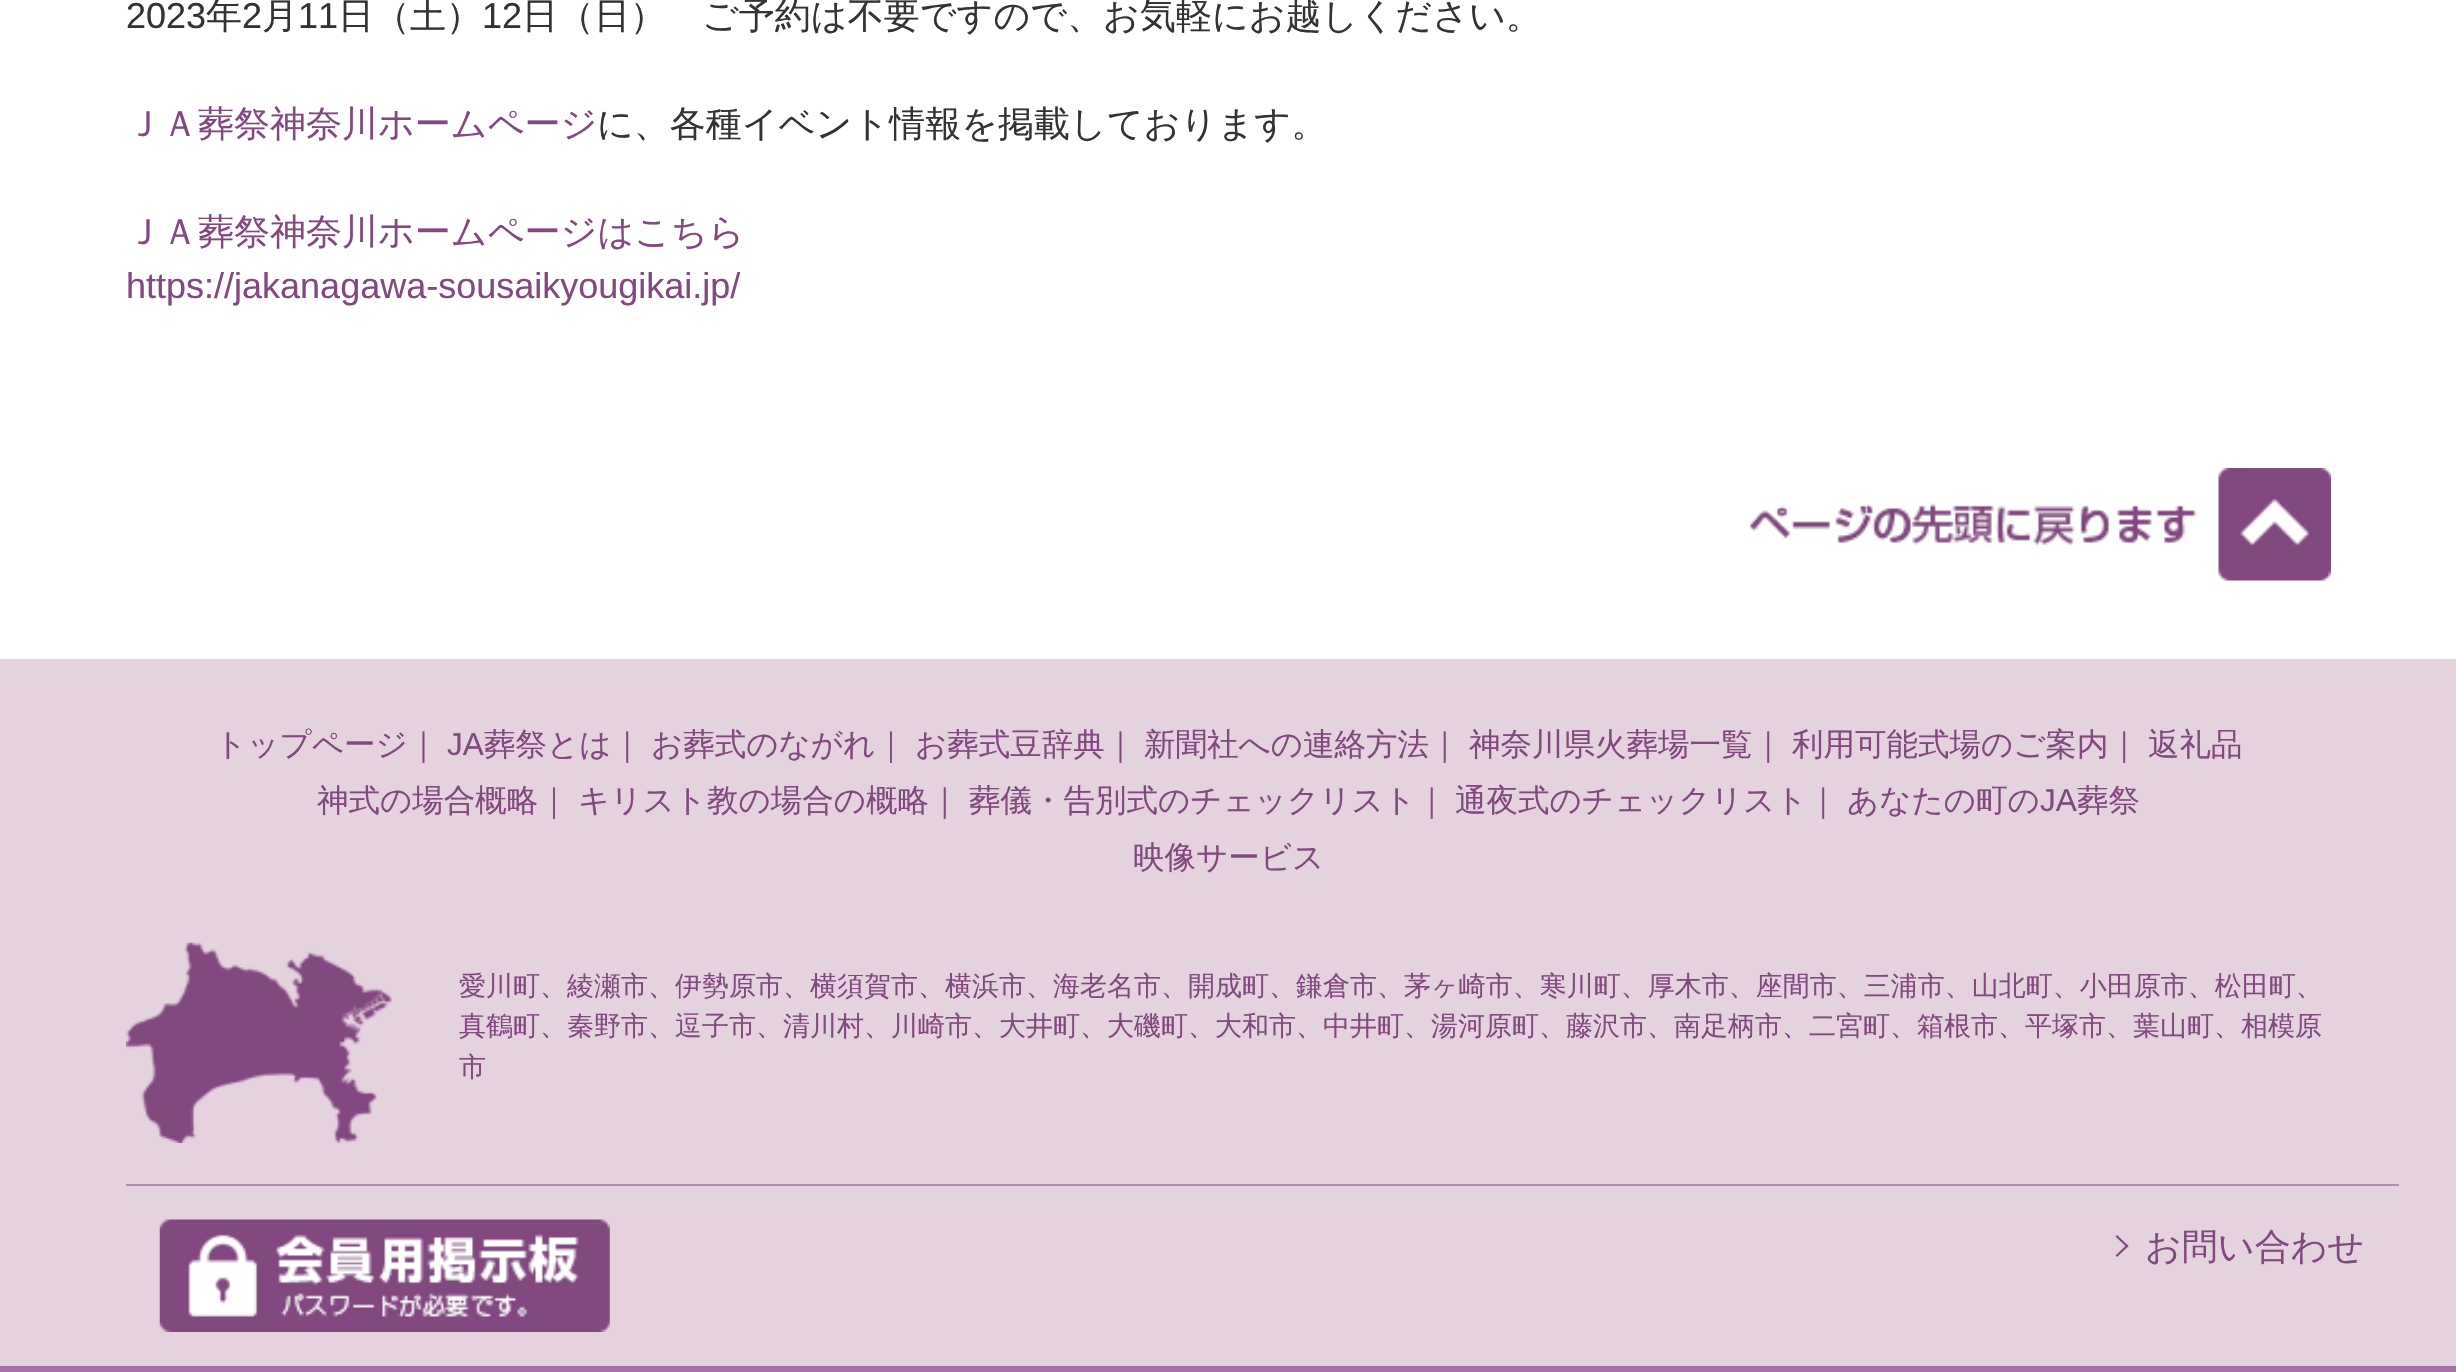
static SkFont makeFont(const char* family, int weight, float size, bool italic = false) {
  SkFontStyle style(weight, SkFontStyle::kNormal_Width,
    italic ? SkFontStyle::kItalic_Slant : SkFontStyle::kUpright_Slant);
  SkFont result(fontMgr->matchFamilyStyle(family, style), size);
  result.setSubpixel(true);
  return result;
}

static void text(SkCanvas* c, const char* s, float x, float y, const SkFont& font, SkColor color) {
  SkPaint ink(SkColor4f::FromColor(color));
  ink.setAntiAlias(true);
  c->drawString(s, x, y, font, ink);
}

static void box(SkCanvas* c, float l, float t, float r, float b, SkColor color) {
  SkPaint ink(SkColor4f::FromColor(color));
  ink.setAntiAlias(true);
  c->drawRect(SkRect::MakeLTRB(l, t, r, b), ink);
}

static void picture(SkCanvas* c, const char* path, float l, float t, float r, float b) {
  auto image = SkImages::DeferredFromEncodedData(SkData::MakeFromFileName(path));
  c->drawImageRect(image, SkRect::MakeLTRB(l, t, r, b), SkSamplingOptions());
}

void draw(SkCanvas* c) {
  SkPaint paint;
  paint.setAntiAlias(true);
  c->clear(0xffffffff);
  SkFont face1 = makeFont("Liberation Sans", 400, 36);
  text(c, "2023", 126, 28, face1, 0xff333333);
  SkFont face2 = makeFont("WenQuanYi Zen Hei", 500, 36);
  text(c, "年", 206, 28, face2, 0xff333333);
  text(c, "2", 242, 28, face1, 0xff333333);
  text(c, "月", 262, 28, face2, 0xff333333);
  text(c, "11", 298, 28, face1, 0xff333333);
  text(c, "日（土）", 338, 28, face2, 0xff333333);
  text(c, "12", 482, 28, face1, 0xff333333);
  text(c, "日（日）　ご予約は不要ですので、お気軽にお越しください。", 522, 28, face2, 0xff333333);
  text(c, "ＪＡ葬祭神奈川ホームページ", 126, 136, face2, 0xff824880);
  text(c, "に、各種イベント情報を掲載しております。", 597, 136, face2, 0xff333333);
  text(c, "ＪＡ葬祭神奈川ホームページはこちら", 126, 244, face2, 0xff824880);
  text(c, "https://jakanagawa-sousaikyougikai.jp/", 126, 298, face1, 0xff824880);
  box(c, 0, 659, 2456, 1366, 0xffe5d2df);
  picture(c, "img_01.png", 1750, 468, 2331, 581);
  SkFont face3 = makeFont("WenQuanYi Zen Hei", 500, 31.5f);
  text(c, "トップページ｜", 215, 755, face3, 0xff824880);
  SkFont face4 = makeFont("Liberation Sans", 400, 31.5f);
  text(c, "JA", 447, 755, face4, 0xff824880);
  text(c, "葬祭とは｜", 484, 755, face3, 0xff824880);
  text(c, "お葬式のながれ｜", 651, 755, face3, 0xff824880);
  text(c, "お葬式豆辞典｜", 915, 755, face3, 0xff824880);
  text(c, "新聞社への連絡方法｜", 1144, 755, face3, 0xff824880);
  text(c, "神奈川県火葬場一覧｜", 1469, 755, face3, 0xff824880);
  text(c, "利用可能式場のご案内｜", 1792, 755, face3, 0xff824880);
  text(c, "返礼品", 2148, 755, face3, 0xff824880);
  text(c, "神式の場合概略｜", 317, 811, face3, 0xff824880);
  text(c, "キリスト教の場合の概略｜", 578, 811, face3, 0xff824880);
  text(c, "葬儀・告別式のチェックリスト｜", 969, 811, face3, 0xff824880);
  text(c, "通夜式のチェックリスト｜", 1455, 811, face3, 0xff824880);
  text(c, "あなたの町の", 1847, 811, face3, 0xff824880);
  text(c, "JA", 2040, 811, face4, 0xff824880);
  text(c, "葬祭", 2077, 811, face3, 0xff824880);
  text(c, "映像サービス", 1133, 868, face3, 0xff824880);
  picture(c, "img_02.png", 126, 942, 392, 1143);
  SkFont face5 = makeFont("WenQuanYi Zen Hei", 500, 27);
  text(c, "愛川町、綾瀬市、伊勢原市、横須賀市、横浜市、海老名市、開成町、鎌倉市、茅ヶ崎市、寒川町、厚木市、座間市、三浦市、山北町、小田原市、松田町、", 459, 995, face5, 0xff824880);
  text(c, "真鶴町、秦野市、逗子市、清川村、川崎市、大井町、大磯町、大和市、中井町、湯河原町、藤沢市、南足柄市、二宮町、箱根市、平塚市、葉山町、相模原", 459, 1035, face5, 0xff824880);
  text(c, "市", 459, 1076, face5, 0xff824880);
  box(c, 126, 1184, 2399, 1186, 0xffb38daf);
  picture(c, "img_03.png", 159, 1219, 610, 1332);
  paint.setColor(0xff824880);
  c->drawPath(SkPathBuilder().moveTo(2117, 1235).lineTo(2128.5f, 1246).lineTo(2127, 1247.5f).lineTo(2115.5f, 1236.5f).close().detach(), paint);
  c->drawPath(SkPathBuilder().moveTo(2127, 1244.5f).lineTo(2128.5f, 1246).lineTo(2117, 1257).lineTo(2115.5f, 1255.5f).close().detach(), paint);
  text(c, "お問い合わせ", 2145, 1259, face2, 0xff824880);
  box(c, 0, 1366, 2456, 1372, 0xffa771a5);
}
